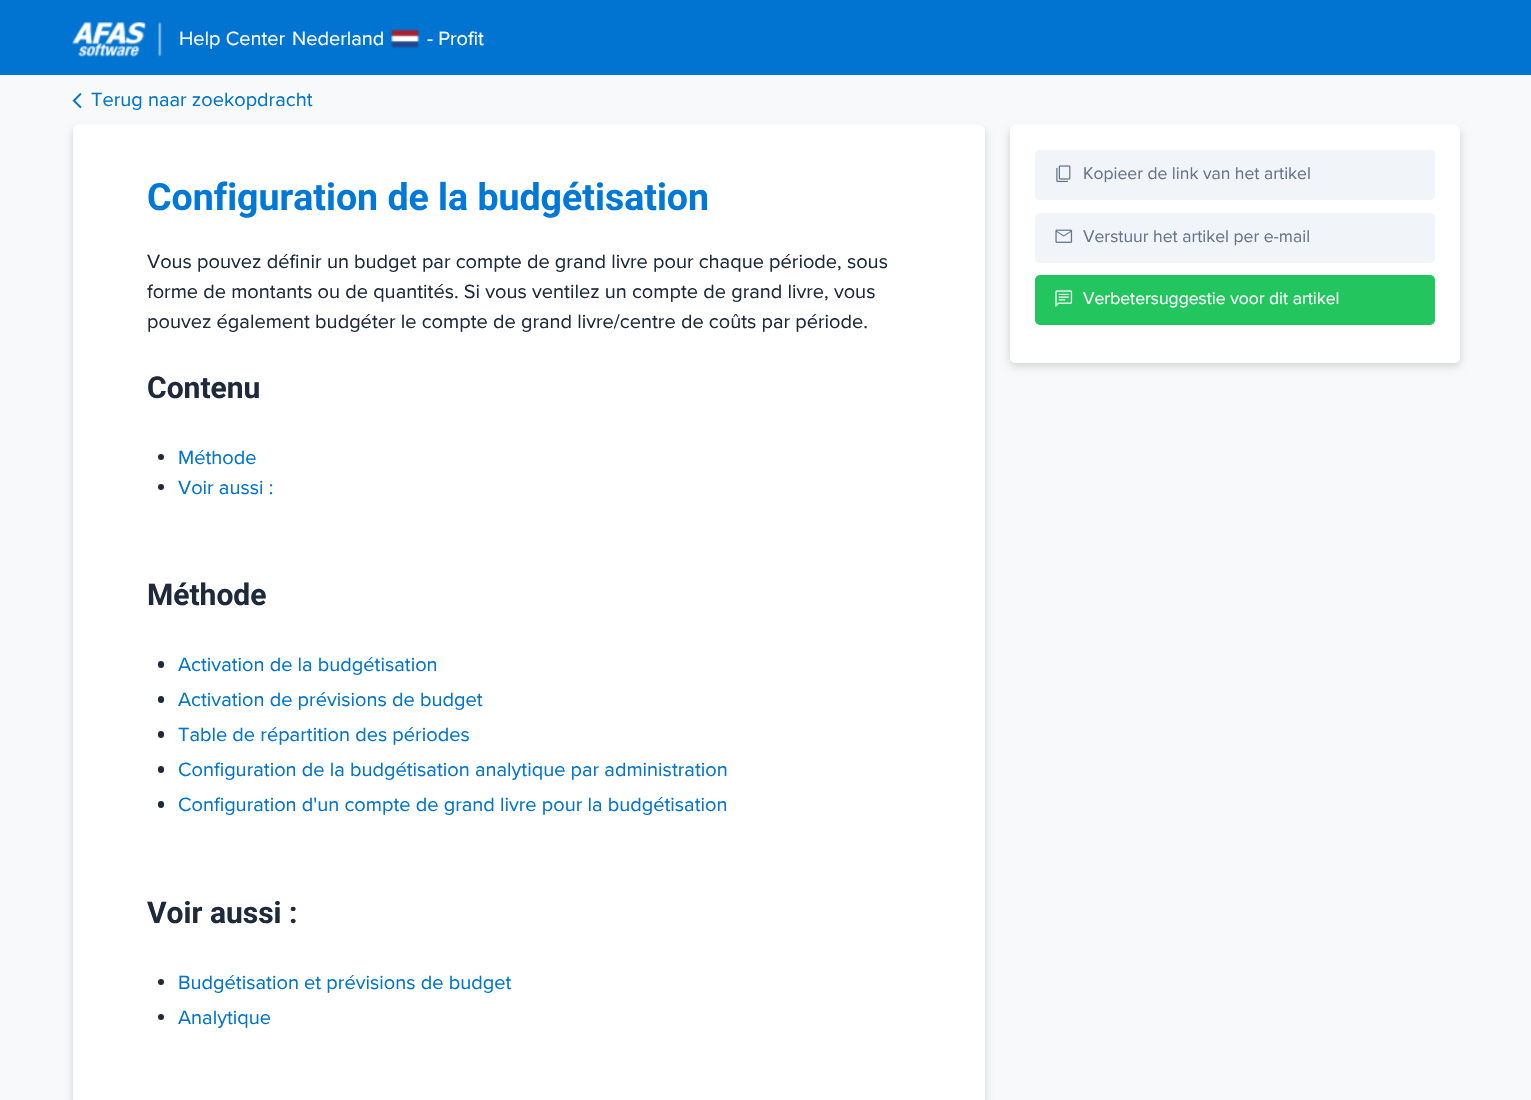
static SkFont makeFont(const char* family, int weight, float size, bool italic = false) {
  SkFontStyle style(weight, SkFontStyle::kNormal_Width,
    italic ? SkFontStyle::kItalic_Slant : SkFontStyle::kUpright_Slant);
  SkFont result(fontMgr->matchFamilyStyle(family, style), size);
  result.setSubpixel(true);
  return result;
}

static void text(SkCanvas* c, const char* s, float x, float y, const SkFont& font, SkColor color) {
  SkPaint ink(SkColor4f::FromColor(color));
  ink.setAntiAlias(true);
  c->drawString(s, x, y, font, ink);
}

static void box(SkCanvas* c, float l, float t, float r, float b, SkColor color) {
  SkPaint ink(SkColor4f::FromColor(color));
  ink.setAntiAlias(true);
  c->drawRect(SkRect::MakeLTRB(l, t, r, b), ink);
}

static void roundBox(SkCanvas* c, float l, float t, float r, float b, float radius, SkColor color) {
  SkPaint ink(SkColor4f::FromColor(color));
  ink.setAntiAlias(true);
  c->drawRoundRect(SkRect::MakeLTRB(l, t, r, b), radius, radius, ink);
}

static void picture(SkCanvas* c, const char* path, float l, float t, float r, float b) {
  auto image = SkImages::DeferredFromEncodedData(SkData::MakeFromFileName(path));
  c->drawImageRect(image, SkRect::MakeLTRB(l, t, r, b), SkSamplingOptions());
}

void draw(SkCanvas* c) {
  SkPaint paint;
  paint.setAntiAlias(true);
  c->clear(0xfff7f9fa);
  box(c, 0, 0, 1531, 75, 0xff0074d0);
  picture(c, "img_01.png", 72, 22, 162, 57);
  SkFont face1 = makeFont("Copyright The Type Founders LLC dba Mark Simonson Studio", 400, 20);
  text(c, "Help Center", 179, 45, face1, 0xffffffff);
  text(c, "Nederland", 292, 45, face1, 0xffffffff);
  picture(c, "img_02.png", 390, 29, 420, 49);
  text(c, "- Profit", 427, 45, face1, 0xffffffff);
  paint.setColor(0x29000000);
  paint.setMaskFilter(SkMaskFilter::MakeBlur(kNormal_SkBlurStyle, 4));
  c->drawRoundRect(SkRect::MakeLTRB(73, 129, 985, 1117), 5, 5, paint);
  paint.setMaskFilter(nullptr);
  paint.setMaskFilter(SkMaskFilter::MakeBlur(kNormal_SkBlurStyle, 4));
  c->drawRoundRect(SkRect::MakeLTRB(1010, 129, 1460, 366), 5, 5, paint);
  paint.setMaskFilter(nullptr);
  box(c, 75, 123, 1458, 125, 0xfff7f9fa);
  picture(c, "img_03.png", 72, 93, 82, 109);
  text(c, "Terug naar zoekopdracht", 91, 106, face1, 0xff0074d0);
  roundBox(c, 73, 125, 985, 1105, 5, 0xffffffff);
  SkFont face2 = makeFont("Roboto", 700, 37.5f);
  text(c, "Configuration de la budgétisation", 147, 210, face2, 0xff0078d7);
  text(c, "Vous pouvez définir un budget par compte de grand livre pour chaque période, sous", 147, 268, face1, 0xff1e293b);
  text(c, "forme de montants ou de quantités. Si vous ventilez un compte de grand livre, vous", 147, 298, face1, 0xff1e293b);
  text(c, "pouvez également budgéter le compte de grand livre/centre de coûts par période.", 147, 328, face1, 0xff1e293b);
  SkFont face3 = makeFont("Roboto", 700, 30);
  text(c, "Contenu", 147, 398, face3, 0xff1e293b);
  paint.setColor(0xff1e293b);
  c->drawCircle(161, 457, 3, paint);
  text(c, "Méthode", 178, 464, face1, 0xff0074d0);
  c->drawCircle(161, 487, 3, paint);
  text(c, "Voir aussi :", 178, 494, face1, 0xff0074d0);
  text(c, "Méthode", 147, 605, face3, 0xff1e293b);
  roundBox(c, 158, 661, 164, 668, 3, 0xff1e293b);
  text(c, "Activation de la budgétisation", 178, 671, face1, 0xff0074d0);
  roundBox(c, 158, 696, 164, 703, 3, 0xff1e293b);
  text(c, "Activation de prévisions de budget", 178, 706, face1, 0xff0074d0);
  roundBox(c, 158, 731, 164, 738, 3, 0xff1e293b);
  text(c, "Table de répartition des périodes", 178, 741, face1, 0xff0074d0);
  roundBox(c, 158, 766, 164, 773, 3, 0xff1e293b);
  text(c, "Configuration de la budgétisation analytique par administration", 178, 776, face1, 0xff0074d0);
  roundBox(c, 158, 801, 164, 808, 3, 0xff1e293b);
  text(c, "Configuration d'un compte de grand livre pour la budgétisation", 178, 811, face1, 0xff0074d0);
  text(c, "Voir aussi :", 147, 923, face3, 0xff1e293b);
  c->drawCircle(161, 982, 3, paint);
  text(c, "Budgétisation et prévisions de budget", 178, 989, face1, 0xff0074d0);
  c->drawCircle(161, 1017, 3, paint);
  text(c, "Analytique", 178, 1024, face1, 0xff0074d0);
  roundBox(c, 1010, 125, 1460, 363, 5, 0xffffffff);
  roundBox(c, 1035, 150, 1435, 200, 5, 0xfff1f5f9);
  picture(c, "img_04.png", 1056, 165, 1071, 183);
  SkFont face4 = makeFont("Copyright The Type Founders LLC dba Mark Simonson Studio", 400, 17.5f);
  text(c, "Kopieer de link van het artikel", 1083, 179, face4, 0xff64748b);
  roundBox(c, 1035, 213, 1435, 263, 5, 0xfff1f5f9);
  picture(c, "img_05.png", 1055, 229, 1073, 243);
  text(c, "Verstuur het artikel per e-mail", 1083, 242, face4, 0xff64748b);
  roundBox(c, 1035, 275, 1435, 325, 5, 0xff22c55e);
  picture(c, "img_06.png", 1055, 290, 1073, 307);
  text(c, "Verbetersuggestie voor dit artikel", 1083, 304, face4, 0xffffffff);
}
